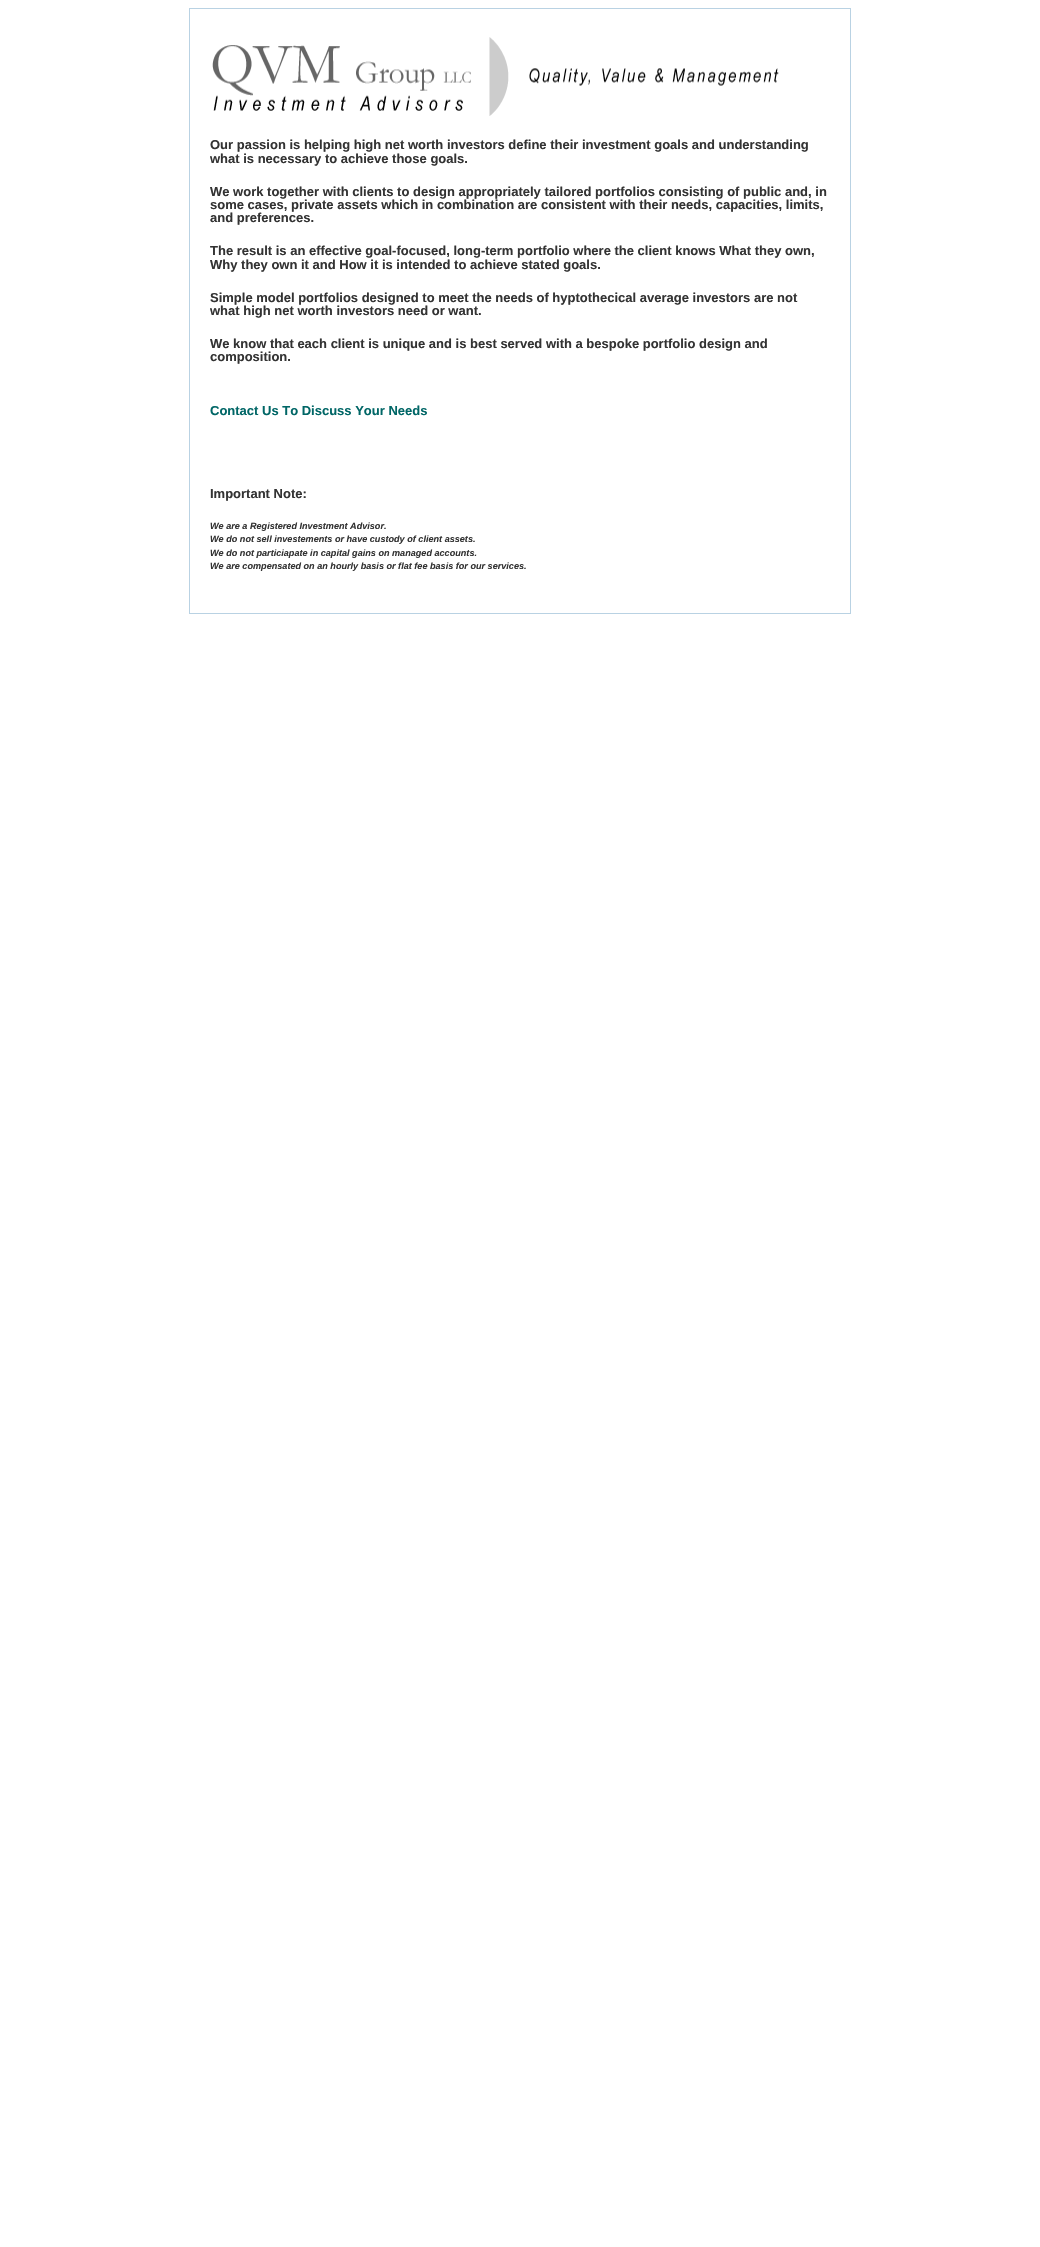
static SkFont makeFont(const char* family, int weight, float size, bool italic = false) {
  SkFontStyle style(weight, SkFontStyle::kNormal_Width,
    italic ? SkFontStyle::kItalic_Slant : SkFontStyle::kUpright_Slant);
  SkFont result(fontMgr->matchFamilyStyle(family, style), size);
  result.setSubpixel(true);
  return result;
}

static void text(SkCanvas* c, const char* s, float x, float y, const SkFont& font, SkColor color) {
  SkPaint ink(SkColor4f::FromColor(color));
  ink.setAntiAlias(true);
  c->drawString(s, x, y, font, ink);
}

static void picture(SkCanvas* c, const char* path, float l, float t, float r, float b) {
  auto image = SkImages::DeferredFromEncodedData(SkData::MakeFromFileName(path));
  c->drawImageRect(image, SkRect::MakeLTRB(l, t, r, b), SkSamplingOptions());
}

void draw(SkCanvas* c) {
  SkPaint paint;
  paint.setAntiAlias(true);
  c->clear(0xffffffff);
  paint.setStyle(SkPaint::kStroke_Style);
  paint.setStrokeWidth(1);
  paint.setColor(0xffb9d2e3);
  c->drawRect(SkRect::MakeLTRB(189.5f, 8.5f, 850.5f, 613.5f), paint);
  picture(c, "img_01.png", 212, 37, 779, 116);
  SkFont face1 = makeFont("Liberation Sans", 700, 13);
  text(c, "Our passion is helping high net worth investors define their investment goals and understanding", 210, 149, face1, 0xff333333);
  text(c, "what is necessary to achieve those goals.", 210, 163, face1, 0xff333333);
  text(c, "We work together with clients to design appropriately tailored portfolios consisting of public and, in", 210, 196, face1, 0xff333333);
  text(c, "some cases, private assets which in combination are consistent with their needs, capacities, limits,", 210, 209, face1, 0xff333333);
  text(c, "and preferences.", 210, 222, face1, 0xff333333);
  text(c, "The result is an effective goal-focused, long-term portfolio where the client knows What they own,", 210, 255, face1, 0xff333333);
  text(c, "Why they own it and How it is intended to achieve stated goals.", 210, 269, face1, 0xff333333);
  text(c, "Simple model portfolios designed to meet the needs of hyptothecical average investors are not", 210, 302, face1, 0xff333333);
  text(c, "what high net worth investors need or want.", 210, 315, face1, 0xff333333);
  text(c, "We know that each client is unique and is best served with a bespoke portfolio design and", 210, 348, face1, 0xff333333);
  text(c, "composition.", 210, 361, face1, 0xff333333);
  text(c, "Contact Us To Discuss Your Needs", 210, 415, face1, 0xff006666);
  text(c, "Important Note:", 210, 498, face1, 0xff333333);
  SkFont face2 = makeFont("Liberation Sans", 700, 9.1f, true);
  text(c, "We are a Registered Investment Advisor.", 210, 529, face2, 0xff333333);
  text(c, "We do not sell investements or have custody of client assets.", 210, 542, face2, 0xff333333);
  text(c, "We do not particiapate in capital gains on managed accounts.", 210, 556, face2, 0xff333333);
  text(c, "We are compensated on an hourly basis or flat fee basis for our services.", 210, 569, face2, 0xff333333);
}
